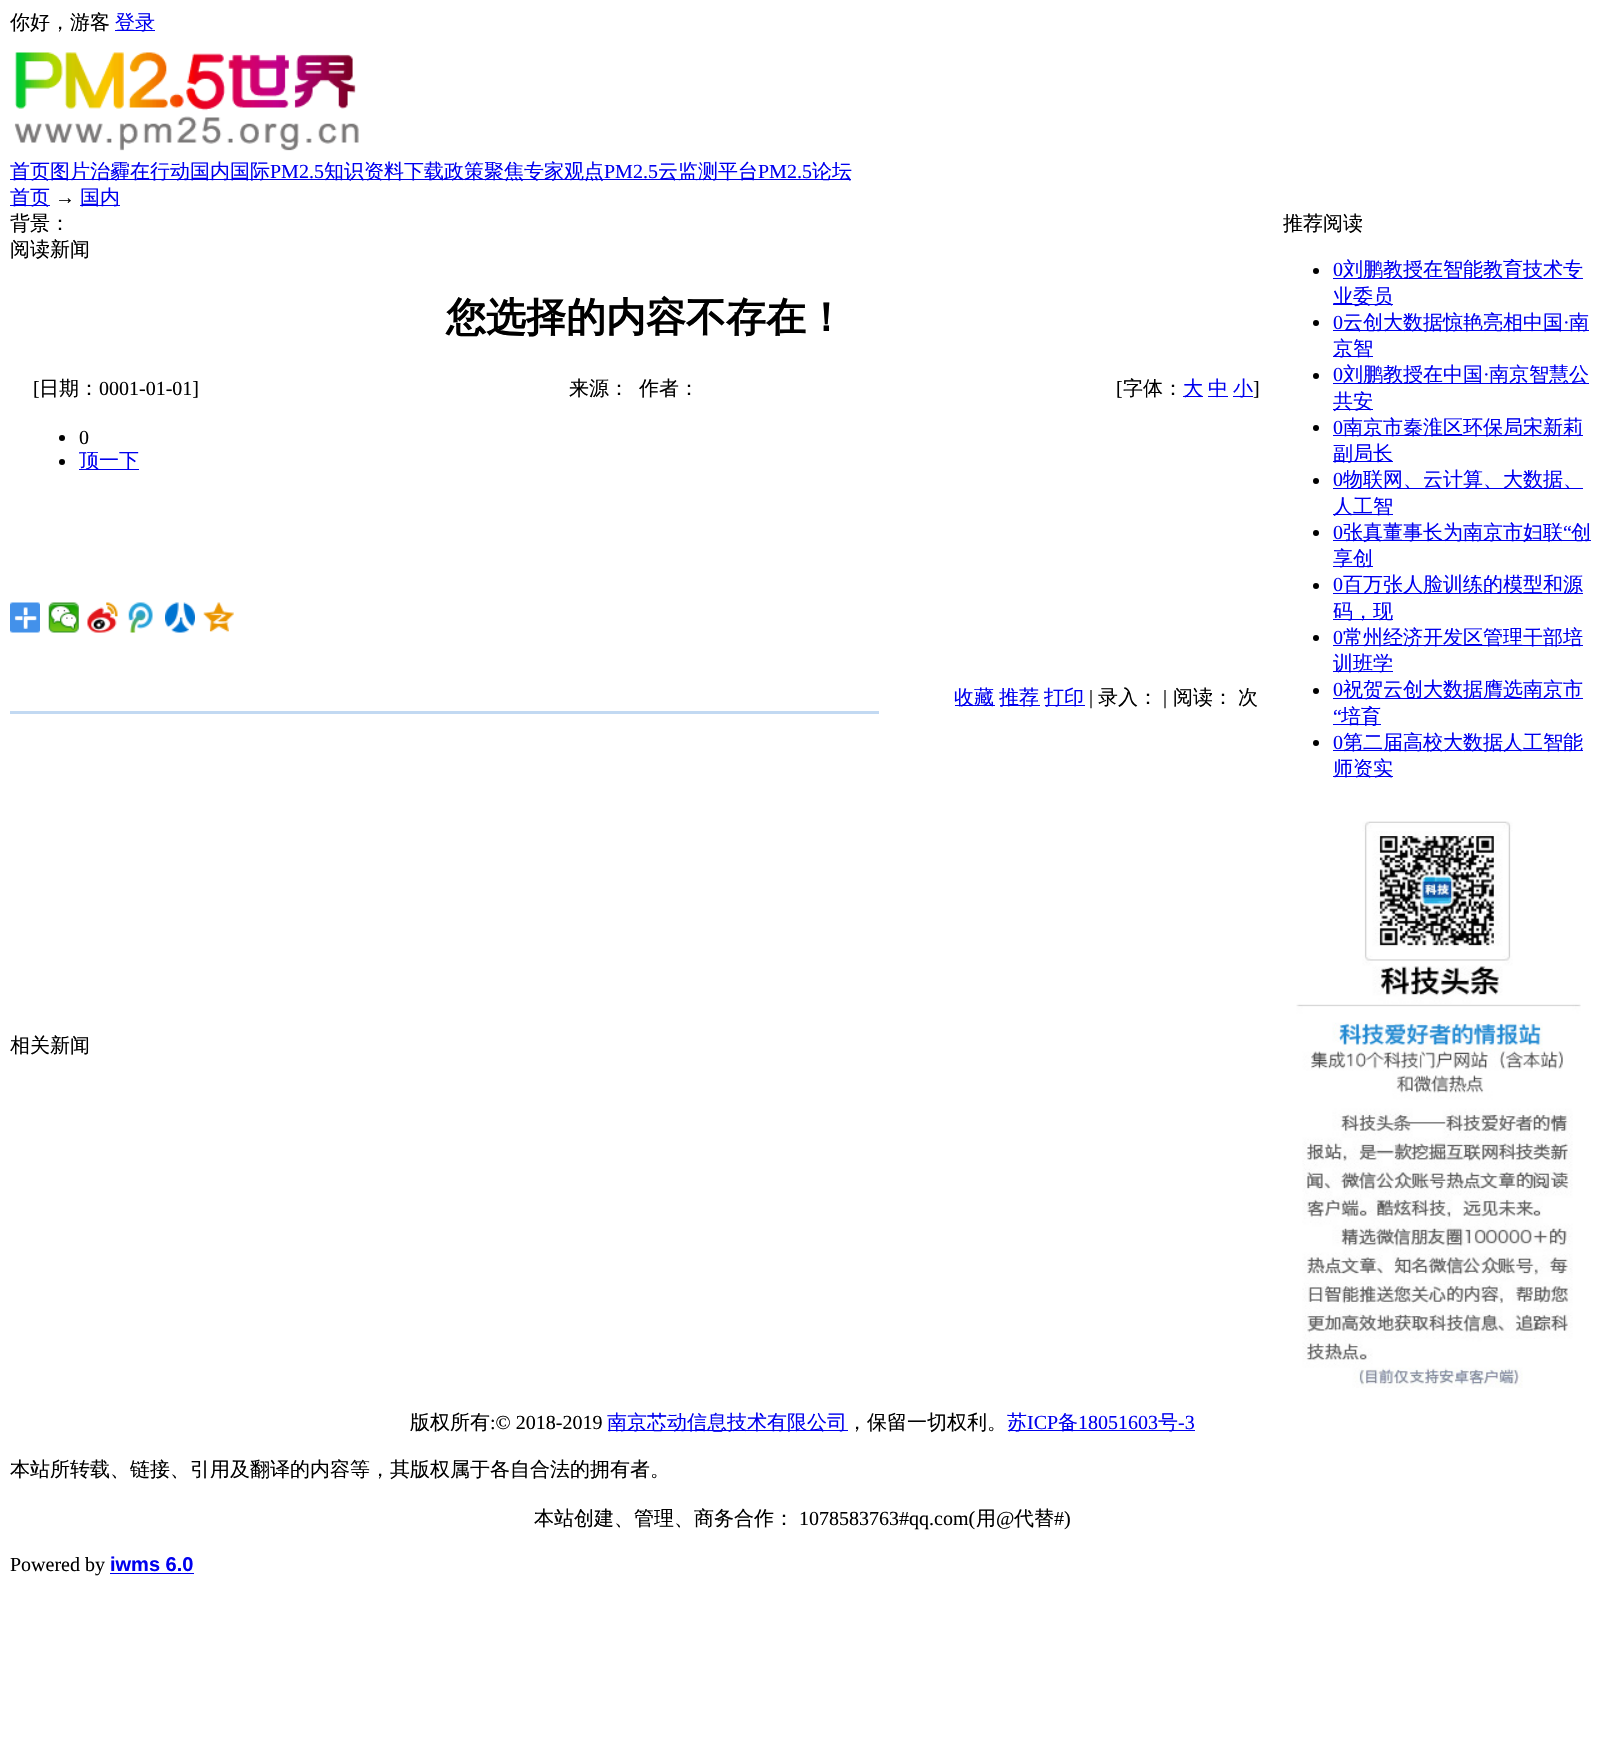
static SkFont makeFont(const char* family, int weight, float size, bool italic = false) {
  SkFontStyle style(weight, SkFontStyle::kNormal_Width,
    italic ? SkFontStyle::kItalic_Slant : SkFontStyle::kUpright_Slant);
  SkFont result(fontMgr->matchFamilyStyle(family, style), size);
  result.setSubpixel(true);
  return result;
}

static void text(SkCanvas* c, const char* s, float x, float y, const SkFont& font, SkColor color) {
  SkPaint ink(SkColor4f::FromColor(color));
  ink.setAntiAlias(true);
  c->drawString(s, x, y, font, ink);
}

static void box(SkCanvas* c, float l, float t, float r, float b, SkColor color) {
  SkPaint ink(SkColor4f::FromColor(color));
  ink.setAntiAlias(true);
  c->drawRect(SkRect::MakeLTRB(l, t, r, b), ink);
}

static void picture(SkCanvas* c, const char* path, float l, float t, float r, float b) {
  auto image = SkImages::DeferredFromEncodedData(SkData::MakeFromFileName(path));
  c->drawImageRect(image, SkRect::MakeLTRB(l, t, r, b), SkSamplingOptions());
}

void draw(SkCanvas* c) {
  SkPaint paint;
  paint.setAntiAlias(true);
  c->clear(0xffffffff);
  SkFont face1 = makeFont("WenQuanYi Zen Hei", 500, 20);
  text(c, "你好，游客", 10, 29, face1, 0xff000000);
  box(c, 115, 30, 155, 31, 0xff0000ee);
  text(c, "登录", 115, 29, face1, 0xff0000ee);
  picture(c, "img_01.png", 14, 52, 359, 151);
  box(c, 10, 179, 851, 180, 0xff0000ee);
  text(c, "首页图片治霾在行动国内国际", 10, 178, face1, 0xff0000ee);
  SkFont face2 = makeFont("Liberation Serif", 400, 20);
  text(c, "PM2.5", 270, 178, face2, 0xff0000ee);
  text(c, "知识资料下载政策聚焦专家观点", 324, 178, face1, 0xff0000ee);
  text(c, "PM2.5", 604, 178, face2, 0xff0000ee);
  text(c, "云监测平台", 658, 178, face1, 0xff0000ee);
  text(c, "PM2.5", 758, 178, face2, 0xff0000ee);
  text(c, "论坛", 812, 178, face1, 0xff0000ee);
  box(c, 10, 205, 50, 206, 0xff0000ee);
  text(c, "首页", 10, 204, face1, 0xff0000ee);
  text(c, "→", 55, 204, face2, 0xff000000);
  box(c, 80, 205, 120, 206, 0xff0000ee);
  text(c, "国内", 80, 204, face1, 0xff0000ee);
  text(c, "背景：", 10, 230, face1, 0xff000000);
  text(c, "阅读新闻", 10, 256, face1, 0xff000000);
  SkFont face3 = makeFont("WenQuanYi Zen Hei", 700, 40);
  text(c, "您选择的内容不存在！", 446, 331, face3, 0xff000000);
  text(c, "[", 33, 395, face2, 0xff000000);
  text(c, "日期：", 39, 395, face1, 0xff000000);
  text(c, "0001-01-01]", 99, 395, face2, 0xff000000);
  text(c, "来源：", 569, 395, face1, 0xff000000);
  text(c, "作者：", 639, 395, face1, 0xff000000);
  text(c, "[", 1116, 395, face2, 0xff000000);
  text(c, "字体：", 1123, 395, face1, 0xff000000);
  box(c, 1183, 396, 1203, 397, 0xff0000ee);
  text(c, "大", 1183, 395, face1, 0xff0000ee);
  box(c, 1208, 396, 1228, 397, 0xff0000ee);
  text(c, "中", 1208, 395, face1, 0xff0000ee);
  box(c, 1233, 396, 1253, 397, 0xff0000ee);
  text(c, "小", 1233, 395, face1, 0xff0000ee);
  text(c, "]", 1253, 395, face2, 0xff000000);
  paint.setColor(0xff000000);
  c->drawCircle(62, 438, 3, paint);
  text(c, "0", 79, 444, face2, 0xff000000);
  c->drawCircle(62, 462, 3, paint);
  box(c, 79, 469, 139, 470, 0xff0000ee);
  text(c, "顶一下", 79, 467, face1, 0xff0000ee);
  picture(c, "img_02.png", 10, 602, 40, 633);
  picture(c, "img_03.png", 48, 602, 79, 633);
  picture(c, "img_04.png", 87, 602, 118, 633);
  picture(c, "img_05.png", 128, 602, 153, 633);
  picture(c, "img_06.png", 165, 602, 195, 633);
  picture(c, "img_07.png", 203, 602, 234, 632);
  box(c, 955, 705, 995, 706, 0xff0000ee);
  text(c, "收藏", 954, 704, face1, 0xff0000ee);
  box(c, 1000, 705, 1040, 706, 0xff0000ee);
  text(c, "推荐", 999, 704, face1, 0xff0000ee);
  box(c, 1045, 705, 1085, 706, 0xff0000ee);
  text(c, "打印", 1044, 704, face1, 0xff0000ee);
  text(c, "|", 1089, 704, face2, 0xff000000);
  text(c, "录入：", 1098, 704, face1, 0xff000000);
  text(c, "|", 1163, 704, face2, 0xff000000);
  text(c, "阅读：", 1173, 704, face1, 0xff000000);
  text(c, "次", 1238, 704, face1, 0xff000000);
  box(c, 10, 711, 879, 714, 0xffc2d9f2);
  text(c, "相关新闻", 10, 1052, face1, 0xff000000);
  text(c, "推荐阅读", 1283, 230, face1, 0xff000000);
  c->drawCircle(1316, 271, 3, paint);
  text(c, "0", 1333, 276, face2, 0xff0000ee);
  box(c, 1333, 278, 1583, 279, 0xff0000ee);
  text(c, "刘鹏教授在智能教育技术专", 1343, 276, face1, 0xff0000ee);
  box(c, 1333, 304, 1393, 305, 0xff0000ee);
  text(c, "业委员", 1333, 303, face1, 0xff0000ee);
  c->drawCircle(1316, 323, 3, paint);
  text(c, "0", 1333, 329, face2, 0xff0000ee);
  box(c, 1333, 330, 1589, 331, 0xff0000ee);
  text(c, "云创大数据惊艳亮相中国", 1343, 329, face1, 0xff0000ee);
  text(c, "·", 1563, 329, face2, 0xff0000ee);
  text(c, "南", 1569, 329, face1, 0xff0000ee);
  box(c, 1333, 356, 1373, 357, 0xff0000ee);
  text(c, "京智", 1333, 355, face1, 0xff0000ee);
  c->drawCircle(1316, 376, 3, paint);
  text(c, "0", 1333, 381, face2, 0xff0000ee);
  box(c, 1333, 383, 1589, 384, 0xff0000ee);
  text(c, "刘鹏教授在中国", 1343, 381, face1, 0xff0000ee);
  text(c, "·", 1483, 381, face2, 0xff0000ee);
  text(c, "南京智慧公", 1489, 381, face1, 0xff0000ee);
  box(c, 1333, 409, 1373, 410, 0xff0000ee);
  text(c, "共安", 1333, 408, face1, 0xff0000ee);
  c->drawCircle(1316, 428, 3, paint);
  text(c, "0", 1333, 434, face2, 0xff0000ee);
  box(c, 1333, 435, 1583, 436, 0xff0000ee);
  text(c, "南京市秦淮区环保局宋新莉", 1343, 434, face1, 0xff0000ee);
  box(c, 1333, 461, 1393, 462, 0xff0000ee);
  text(c, "副局长", 1333, 460, face1, 0xff0000ee);
  c->drawCircle(1316, 481, 3, paint);
  text(c, "0", 1333, 486, face2, 0xff0000ee);
  box(c, 1333, 488, 1583, 489, 0xff0000ee);
  text(c, "物联网、云计算、大数据、", 1343, 486, face1, 0xff0000ee);
  box(c, 1333, 514, 1393, 515, 0xff0000ee);
  text(c, "人工智", 1333, 513, face1, 0xff0000ee);
  text(c, "0", 1333, 539, face2, 0xff0000ee);
  box(c, 1333, 540, 1591, 541, 0xff0000ee);
  text(c, "张真董事长为南京市妇联", 1343, 539, face1, 0xff0000ee);
  text(c, "“", 1563, 539, face2, 0xff0000ee);
  text(c, "创", 1571, 539, face1, 0xff0000ee);
  c->drawCircle(1316, 533, 3, paint);
  box(c, 1333, 566, 1373, 567, 0xff0000ee);
  text(c, "享创", 1333, 565, face1, 0xff0000ee);
  c->drawCircle(1316, 586, 3, paint);
  text(c, "0", 1333, 591, face2, 0xff0000ee);
  box(c, 1333, 593, 1583, 594, 0xff0000ee);
  text(c, "百万张人脸训练的模型和源", 1343, 591, face1, 0xff0000ee);
  box(c, 1333, 619, 1393, 620, 0xff0000ee);
  text(c, "码，现", 1333, 618, face1, 0xff0000ee);
  c->drawCircle(1316, 638, 3, paint);
  text(c, "0", 1333, 644, face2, 0xff0000ee);
  box(c, 1333, 645, 1583, 646, 0xff0000ee);
  text(c, "常州经济开发区管理干部培", 1343, 644, face1, 0xff0000ee);
  box(c, 1333, 671, 1393, 672, 0xff0000ee);
  text(c, "训班学", 1333, 670, face1, 0xff0000ee);
  c->drawCircle(1316, 691, 3, paint);
  text(c, "0", 1333, 696, face2, 0xff0000ee);
  box(c, 1333, 698, 1583, 699, 0xff0000ee);
  text(c, "祝贺云创大数据膺选南京市", 1343, 696, face1, 0xff0000ee);
  text(c, "“", 1333, 723, face2, 0xff0000ee);
  box(c, 1333, 724, 1381, 725, 0xff0000ee);
  text(c, "培育", 1341, 723, face1, 0xff0000ee);
  c->drawCircle(1316, 743, 3, paint);
  text(c, "0", 1333, 749, face2, 0xff0000ee);
  box(c, 1333, 750, 1583, 751, 0xff0000ee);
  text(c, "第二届高校大数据人工智能", 1343, 749, face1, 0xff0000ee);
  box(c, 1333, 776, 1393, 777, 0xff0000ee);
  text(c, "师资实", 1333, 775, face1, 0xff0000ee);
  picture(c, "img_08.png", 1296, 821, 1581, 1388);
  text(c, "版权所有", 410, 1429, face1, 0xff000000);
  text(c, ":© 2018-2019", 490, 1429, face2, 0xff000000);
  box(c, 608, 1430, 848, 1431, 0xff0000ee);
  text(c, "南京芯动信息技术有限公司", 607, 1429, face1, 0xff0000ee);
  text(c, "，保留一切权利。", 847, 1429, face1, 0xff000000);
  box(c, 1008, 1430, 1195, 1431, 0xff0000ee);
  text(c, "苏", 1007, 1429, face1, 0xff0000ee);
  text(c, "ICP", 1027, 1429, face2, 0xff0000ee);
  text(c, "备", 1058, 1429, face1, 0xff0000ee);
  text(c, "18051603", 1078, 1429, face2, 0xff0000ee);
  text(c, "号", 1158, 1429, face1, 0xff0000ee);
  text(c, "-3", 1178, 1429, face2, 0xff0000ee);
  text(c, "本站所转载、链接、引用及翻译的内容等，其版权属于各自合法的拥有者。", 10, 1476, face1, 0xff000000);
  text(c, "本站创建、管理、商务合作：", 534, 1525, face1, 0xff000000);
  text(c, "1078583763#qq.com(", 799, 1525, face2, 0xff000000);
  text(c, "用", 976, 1525, face1, 0xff000000);
  text(c, "@", 996, 1525, face2, 0xff000000);
  text(c, "代替", 1014, 1525, face1, 0xff000000);
  text(c, "#)", 1054, 1525, face2, 0xff000000);
  text(c, "Powered by", 10, 1571, face2, 0xff000000);
  SkFont face4 = makeFont("Liberation Sans", 700, 20);
  text(c, "iwms 6.0", 110, 1571, face4, 0xff0000ee);
  box(c, 110, 1573, 194, 1574, 0xff0000ee);
}
